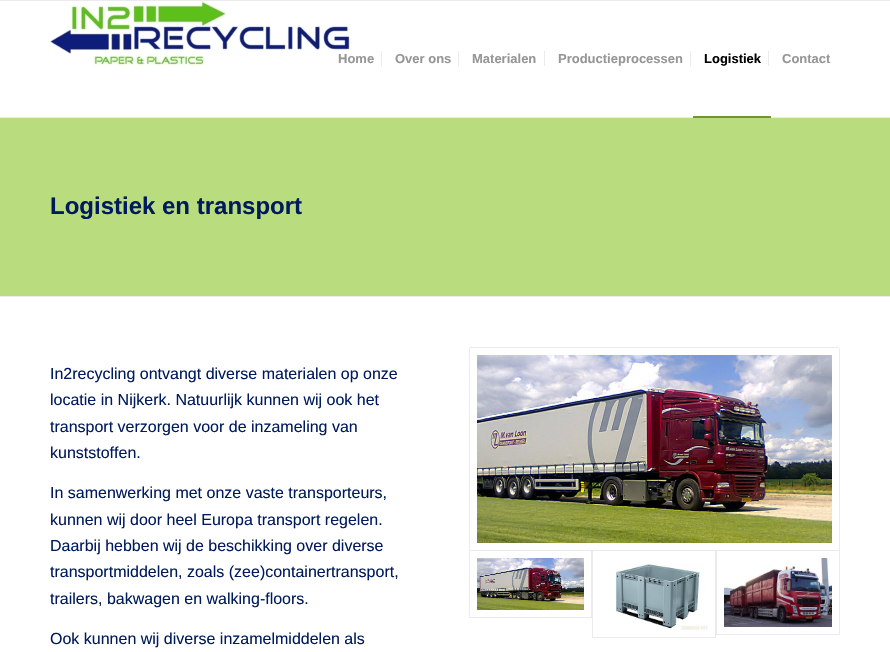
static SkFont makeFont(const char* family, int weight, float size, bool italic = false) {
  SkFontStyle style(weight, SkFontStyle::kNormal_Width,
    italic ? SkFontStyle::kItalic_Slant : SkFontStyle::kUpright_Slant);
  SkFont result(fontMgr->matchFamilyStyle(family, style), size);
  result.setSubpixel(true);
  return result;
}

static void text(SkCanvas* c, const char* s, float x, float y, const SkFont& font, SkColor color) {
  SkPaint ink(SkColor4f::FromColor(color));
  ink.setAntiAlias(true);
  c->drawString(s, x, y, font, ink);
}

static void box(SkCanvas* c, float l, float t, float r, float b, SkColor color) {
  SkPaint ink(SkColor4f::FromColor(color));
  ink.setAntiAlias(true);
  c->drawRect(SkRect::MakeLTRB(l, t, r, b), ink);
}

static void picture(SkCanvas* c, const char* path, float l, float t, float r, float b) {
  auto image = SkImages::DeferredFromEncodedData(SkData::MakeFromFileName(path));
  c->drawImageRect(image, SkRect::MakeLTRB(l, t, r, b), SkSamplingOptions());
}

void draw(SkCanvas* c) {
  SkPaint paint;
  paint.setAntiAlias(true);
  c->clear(0xffffffff);
  box(c, 0, 0, 890, 1, 0xffebebeb);
  box(c, 0, 117, 890, 118, 0xffebebeb);
  picture(c, "img_01.png", 50, 1, 350, 66);
  SkFont face1 = makeFont("Liberation Sans", 700, 13);
  text(c, "Home", 338, 63, face1, 0xff969696);
  text(c, "Over ons", 395, 63, face1, 0xff969696);
  box(c, 381, 51, 382, 66, 0xffebebeb);
  text(c, "Materialen", 472, 63, face1, 0xff969696);
  box(c, 458, 51, 459, 66, 0xffebebeb);
  text(c, "Productieprocessen", 558, 63, face1, 0xff969696);
  box(c, 544, 51, 545, 66, 0xffebebeb);
  text(c, "Logistiek", 704, 63, face1, 0xff000000);
  box(c, 690, 51, 691, 66, 0xffebebeb);
  box(c, 693, 116, 771, 118, 0xff719430);
  text(c, "Contact", 782, 63, face1, 0xff969696);
  box(c, 768, 51, 769, 66, 0xffebebeb);
  box(c, 0, 118, 890, 296, 0xffb9dc7e);
  SkFont face2 = makeFont("Liberation Sans", 700, 24);
  text(c, "Logistiek en transport", 50, 214, face2, 0xff001b5d);
  box(c, 0, 296, 890, 297, 0xffebebeb);
  SkFont face3 = makeFont("Liberation Sans", 400, 16);
  text(c, "In2recycling ontvangt diverse materialen op onze", 50, 379, face3, 0xff001b5d);
  text(c, "locatie in Nijkerk. Natuurlijk kunnen wij ook het", 50, 405, face3, 0xff001b5d);
  text(c, "transport verzorgen voor de inzameling van", 50, 432, face3, 0xff001b5d);
  text(c, "kunststoffen.", 50, 458, face3, 0xff001b5d);
  text(c, "In samenwerking met onze vaste transporteurs,", 50, 498, face3, 0xff001b5d);
  text(c, "kunnen wij door heel Europa transport regelen.", 50, 525, face3, 0xff001b5d);
  text(c, "Daarbij hebben wij de beschikking over diverse", 50, 551, face3, 0xff001b5d);
  text(c, "transportmiddelen, zoals (zee)containertransport,", 50, 577, face3, 0xff001b5d);
  text(c, "trailers, bakwagen en walking-floors.", 50, 604, face3, 0xff001b5d);
  text(c, "Ook kunnen wij diverse inzamelmiddelen als", 50, 644, face3, 0xff001b5d);
  paint.setStyle(SkPaint::kStroke_Style);
  paint.setStrokeWidth(1);
  paint.setColor(0xffebebeb);
  c->drawRect(SkRect::MakeLTRB(469.5f, 550.5f, 591.5f, 617.5f), paint);
  c->drawRect(SkRect::MakeLTRB(592.5f, 550.5f, 715.5f, 637.5f), paint);
  c->drawRect(SkRect::MakeLTRB(716.5f, 550.5f, 839.5f, 634.5f), paint);
  paint.setStyle(SkPaint::kFill_Style);
  paint.setColor(0xffffffff);
  c->drawPath(SkPathBuilder().moveTo(471, 347.5f).lineTo(838, 347.5f).cubicTo(839, 347.5f, 839.5f, 348, 839.5f, 349).lineTo(839.5f, 550.5f).lineTo(469.5f, 550.5f).lineTo(469.5f, 349).cubicTo(469.5f, 348, 470, 347.5f, 471, 347.5f).close().detach(), paint);
  paint.setStyle(SkPaint::kStroke_Style);
  paint.setColor(0xffebebeb);
  c->drawPath(SkPathBuilder().moveTo(471, 347.5f).lineTo(838, 347.5f).cubicTo(839, 347.5f, 839.5f, 348, 839.5f, 349).lineTo(839.5f, 550.5f).lineTo(469.5f, 550.5f).lineTo(469.5f, 349).cubicTo(469.5f, 348, 470, 347.5f, 471, 347.5f).close().detach(), paint);
  picture(c, "img_02.png", 477, 355, 832, 543);
  picture(c, "img_03.png", 477, 558, 584, 610);
  picture(c, "img_04.png", 616, 564, 708, 630);
  picture(c, "img_05.png", 724, 558, 832, 627);
}
